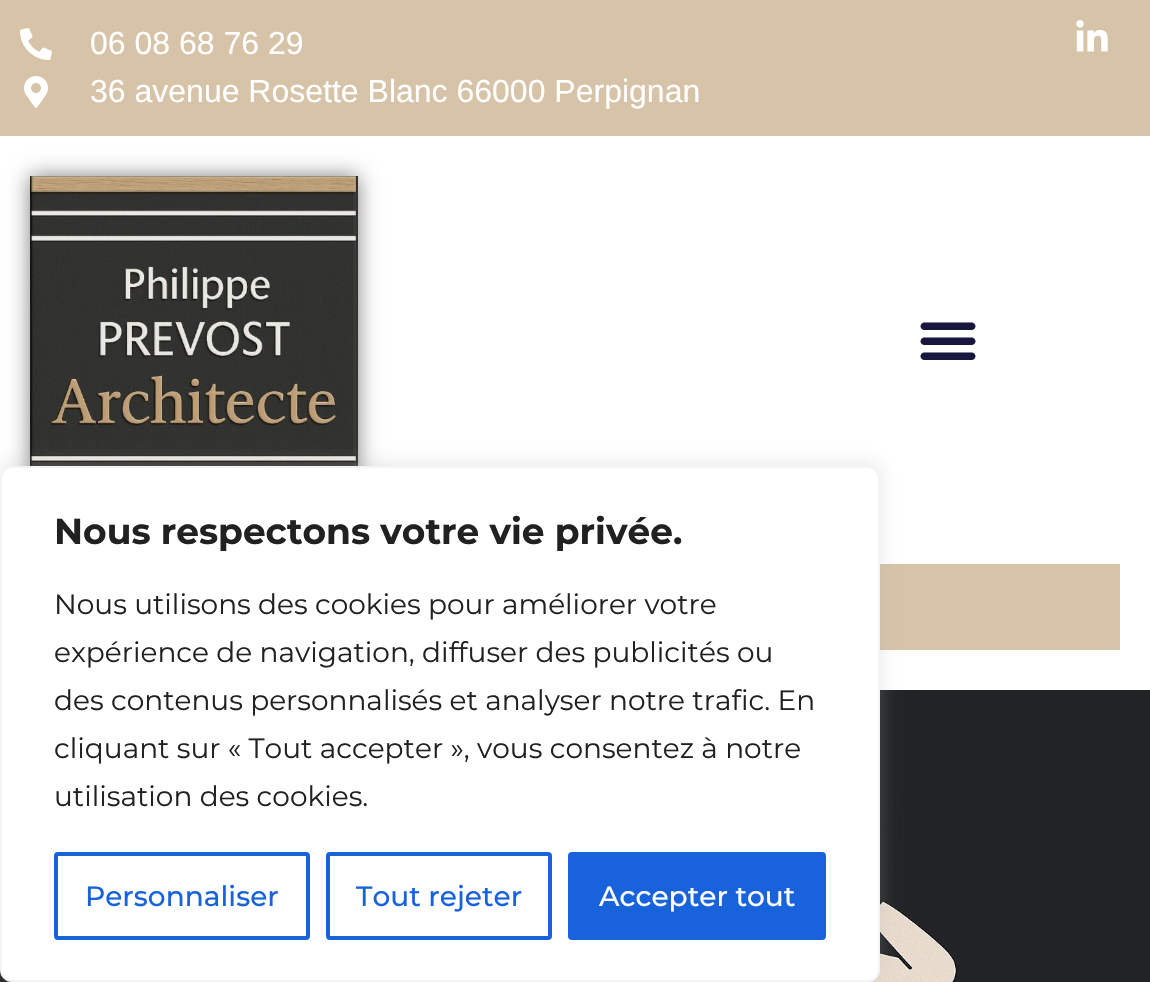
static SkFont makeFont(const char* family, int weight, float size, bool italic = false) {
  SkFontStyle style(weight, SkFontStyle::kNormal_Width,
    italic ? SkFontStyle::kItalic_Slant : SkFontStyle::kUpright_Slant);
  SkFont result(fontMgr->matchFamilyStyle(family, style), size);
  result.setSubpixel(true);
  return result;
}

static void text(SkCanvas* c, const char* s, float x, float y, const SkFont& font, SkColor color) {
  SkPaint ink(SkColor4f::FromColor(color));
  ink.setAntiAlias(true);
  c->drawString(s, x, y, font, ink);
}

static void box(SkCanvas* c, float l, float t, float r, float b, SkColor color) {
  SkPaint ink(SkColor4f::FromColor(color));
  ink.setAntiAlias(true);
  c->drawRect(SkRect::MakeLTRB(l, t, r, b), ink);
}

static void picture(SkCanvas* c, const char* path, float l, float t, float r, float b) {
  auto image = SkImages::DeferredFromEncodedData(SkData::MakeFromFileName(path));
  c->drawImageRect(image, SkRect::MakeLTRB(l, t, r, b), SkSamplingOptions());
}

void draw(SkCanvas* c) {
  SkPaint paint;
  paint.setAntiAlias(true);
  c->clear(0xff222325);
  box(c, 0, 0, 1150, 136, 0xffd6c3a8);
  picture(c, "img_01.png", 20, 28, 52, 60);
  SkFont face1 = makeFont("Liberation Sans", 400, 32);
  text(c, "06 08 68 76 29", 90, 54, face1, 0xffffffff);
  picture(c, "img_02.png", 24, 76, 48, 108);
  text(c, "36 avenue Rosette Blanc 66000 Perpignan", 90, 102, face1, 0xffffffff);
  picture(c, "img_03.png", 1076, 20, 1108, 52);
  box(c, 0, 136, 1150, 690, 0xffffffff);
  paint.setColor(0x80000000);
  paint.setMaskFilter(SkMaskFilter::MakeBlur(kNormal_SkBlurStyle, 10));
  c->drawRect(SkRect::MakeLTRB(30, 176, 358, 504), paint);
  paint.setMaskFilter(nullptr);
  picture(c, "img_04.png", 30, 176, 358, 466);
  picture(c, "img_05.png", 920, 322, 976, 360);
  box(c, 880, 564, 1120, 650, 0xffd6c3a8);
  picture(c, "img_06.png", 868, 780, 961, 982);
  paint.setColor(0x4dacabab);
  paint.setMaskFilter(SkMaskFilter::MakeBlur(kNormal_SkBlurStyle, 10));
  c->drawRoundRect(SkRect::MakeLTRB(0, 464, 880, 980), 12, 12, paint);
  paint.setMaskFilter(nullptr);
  paint.setColor(0xffffffff);
  c->drawRoundRect(SkRect::MakeLTRB(1, 467, 879, 981), 11, 11, paint);
  paint.setStyle(SkPaint::kStroke_Style);
  paint.setStrokeWidth(2);
  paint.setColor(0xfff4f4f4);
  c->drawRoundRect(SkRect::MakeLTRB(1, 467, 879, 981), 11, 11, paint);
  SkFont face2 = makeFont("Montserrat", 700, 36);
  text(c, "Nous respectons votre vie privée.", 54, 544, face2, 0xff212121);
  SkFont face3 = makeFont("Montserrat", 400, 28);
  text(c, "Nous utilisons des cookies pour améliorer votre", 54, 614, face3, 0xff212121);
  text(c, "expérience de navigation, diffuser des publicités ou", 54, 662, face3, 0xff212121);
  text(c, "des contenus personnalisés et analyser notre trafic. En", 54, 710, face3, 0xff212121);
  text(c, "cliquant sur « Tout accepter », vous consentez à notre", 54, 758, face3, 0xff212121);
  text(c, "utilisation des cookies.", 54, 806, face3, 0xff212121);
  paint.setStrokeWidth(4);
  paint.setColor(0xff1863dc);
  c->drawRoundRect(SkRect::MakeLTRB(56, 854, 308, 938), 2, 2, paint);
  SkFont face4 = makeFont("Montserrat", 500, 28);
  text(c, "Personnaliser", 85, 906, face4, 0xff1863dc);
  c->drawRoundRect(SkRect::MakeLTRB(328, 854, 550, 938), 2, 2, paint);
  text(c, "Tout rejeter", 356, 906, face4, 0xff1863dc);
  paint.setStyle(SkPaint::kFill_Style);
  c->drawRoundRect(SkRect::MakeLTRB(570, 854, 824, 938), 2, 2, paint);
  paint.setStyle(SkPaint::kStroke_Style);
  c->drawRoundRect(SkRect::MakeLTRB(570, 854, 824, 938), 2, 2, paint);
  text(c, "Accepter tout", 599, 906, face4, 0xffffffff);
}
